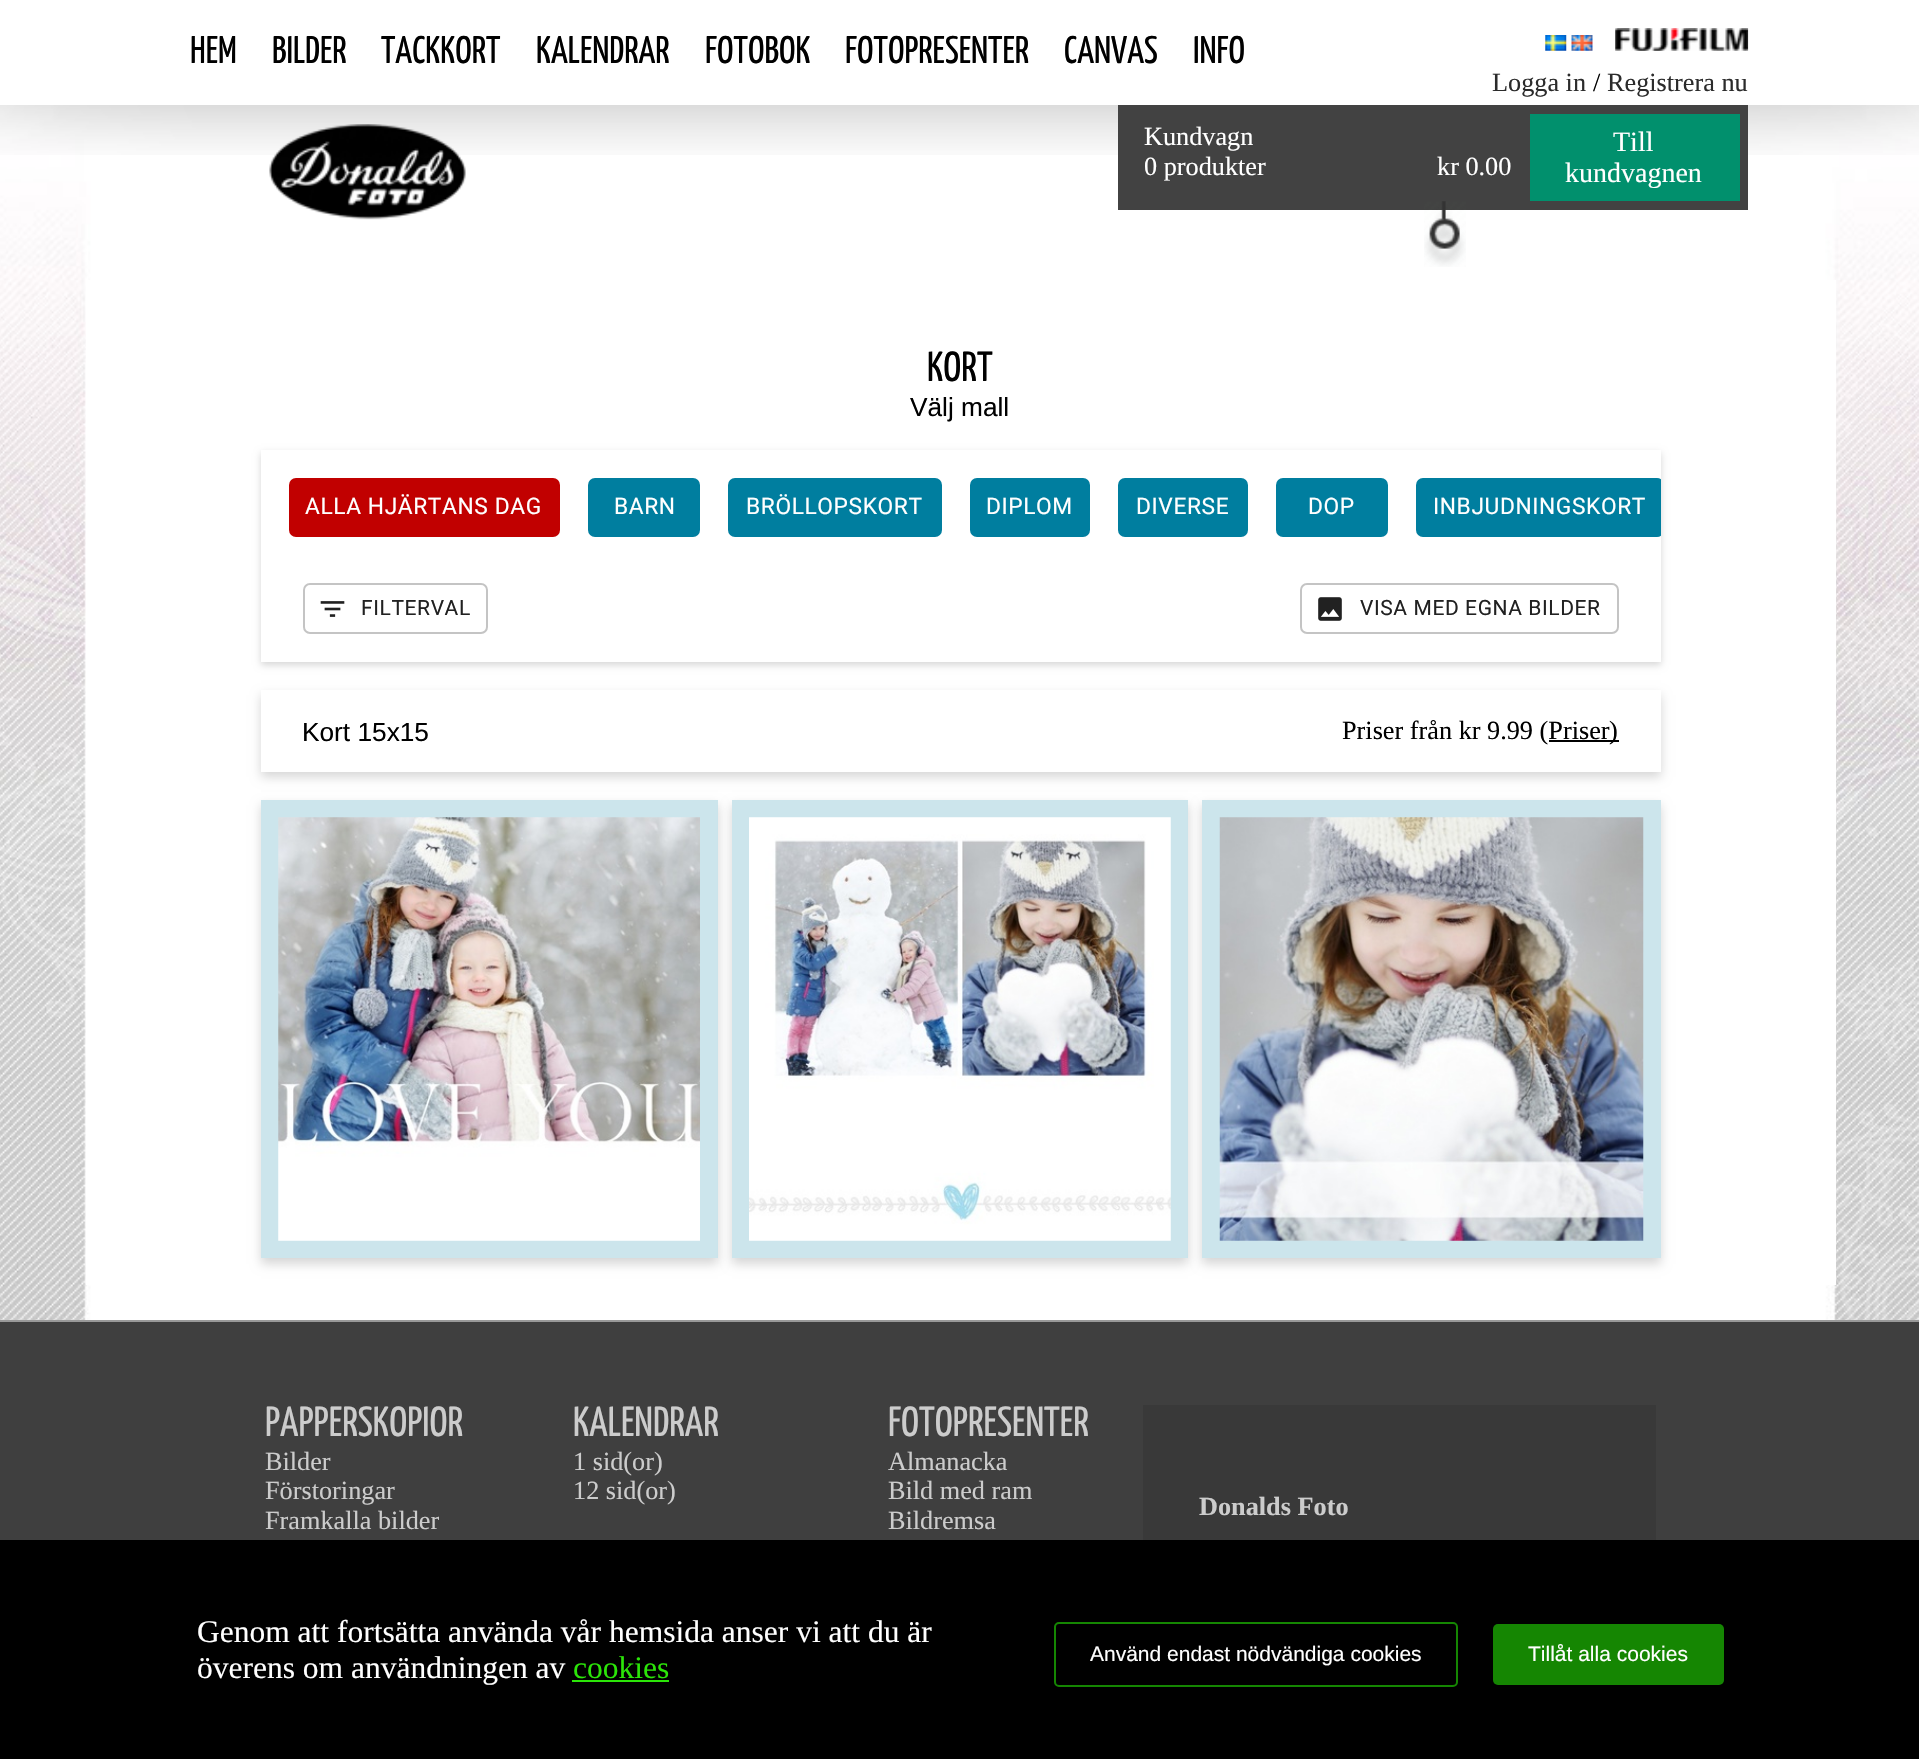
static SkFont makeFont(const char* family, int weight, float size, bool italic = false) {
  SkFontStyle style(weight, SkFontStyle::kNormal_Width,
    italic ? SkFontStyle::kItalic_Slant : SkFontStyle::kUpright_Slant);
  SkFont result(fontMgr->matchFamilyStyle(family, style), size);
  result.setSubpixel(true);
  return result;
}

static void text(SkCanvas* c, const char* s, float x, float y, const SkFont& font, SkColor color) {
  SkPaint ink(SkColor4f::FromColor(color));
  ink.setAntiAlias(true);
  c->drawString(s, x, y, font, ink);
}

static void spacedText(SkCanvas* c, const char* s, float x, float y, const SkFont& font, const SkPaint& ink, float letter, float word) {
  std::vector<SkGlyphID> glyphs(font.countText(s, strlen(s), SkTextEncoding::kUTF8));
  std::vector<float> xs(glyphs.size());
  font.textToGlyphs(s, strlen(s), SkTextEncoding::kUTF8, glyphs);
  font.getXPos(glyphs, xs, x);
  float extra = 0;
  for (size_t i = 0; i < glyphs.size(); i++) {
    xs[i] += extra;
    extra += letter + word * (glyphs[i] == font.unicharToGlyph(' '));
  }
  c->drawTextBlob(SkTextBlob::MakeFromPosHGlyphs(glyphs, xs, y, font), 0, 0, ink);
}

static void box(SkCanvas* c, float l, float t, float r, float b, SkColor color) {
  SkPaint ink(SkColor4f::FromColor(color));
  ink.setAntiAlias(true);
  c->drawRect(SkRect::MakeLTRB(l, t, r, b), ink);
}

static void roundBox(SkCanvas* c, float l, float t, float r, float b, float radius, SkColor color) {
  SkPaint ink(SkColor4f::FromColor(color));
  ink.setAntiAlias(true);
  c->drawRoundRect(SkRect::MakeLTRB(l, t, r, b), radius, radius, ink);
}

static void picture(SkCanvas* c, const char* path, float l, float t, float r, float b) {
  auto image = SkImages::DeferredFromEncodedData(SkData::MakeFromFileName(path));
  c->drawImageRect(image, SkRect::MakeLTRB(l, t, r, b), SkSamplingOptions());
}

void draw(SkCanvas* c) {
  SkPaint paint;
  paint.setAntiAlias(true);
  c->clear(0xffffffff);
  picture(c, "img_01.png", 0, 0, 1919, 1320);
  SkFont face1 = makeFont("Yanone Kaffeesatz", 200, 38.5f);
  text(c, "HEM", 190, 63, face1, 0xff000000);
  text(c, "BILDER", 272, 63, face1, 0xff000000);
  text(c, "TACKKORT", 381, 63, face1, 0xff000000);
  text(c, "KALENDRAR", 536, 63, face1, 0xff000000);
  text(c, "FOTOBOK", 705, 63, face1, 0xff000000);
  text(c, "FOTOPRESENTER", 845, 63, face1, 0xff000000);
  text(c, "CANVAS", 1064, 63, face1, 0xff000000);
  text(c, "INFO", 1193, 63, face1, 0xff000000);
  picture(c, "img_02.png", 1545, 35, 1567, 51);
  picture(c, "img_03.png", 1571, 35, 1593, 51);
  picture(c, "img_04.png", 1615, 28, 1749, 51);
  SkFont face2 = makeFont("Liberation Serif", 400, 26.25f);
  text(c, "Logga in", 1492, 91, face2, 0xff2b2b2b);
  text(c, "/", 1593, 91, face2, 0xff000000);
  text(c, "Registrera nu", 1607, 91, face2, 0xff2b2b2b);
  picture(c, "img_05.png", 0, 105, 1919, 155);
  picture(c, "img_06.png", 269, 124, 466, 220);
  box(c, 1118, 105, 1748, 210, 0xff424242);
  text(c, "Kundvagn", 1144, 145, face2, 0xffffffff);
  text(c, "0 produkter", 1144, 175, face2, 0xffffffff);
  text(c, "kr 0.00", 1437, 175, face2, 0xffffffff);
  box(c, 1530, 114, 1740, 201, 0xff01906d);
  SkFont face3 = makeFont("Liberation Serif", 400, 28);
  text(c, "Till", 1613, 151, face3, 0xffffffff);
  text(c, "kundvagnen", 1565, 182, face3, 0xffffffff);
  picture(c, "img_07.png", 1424, 201, 1466, 267);
  box(c, 86, 280, 1836, 1285, 0xffffffff);
  SkFont face4 = makeFont("Yanone Kaffeesatz", 200, 42);
  text(c, "KORT", 927, 381, face4, 0xff000000);
  SkFont face5 = makeFont("Liberation Sans", 400, 26.25f);
  text(c, "Välj mall", 910, 416, face5, 0xff000000);
  paint.setColor(0x29000000);
  paint.setMaskFilter(SkMaskFilter::MakeBlur(kNormal_SkBlurStyle, 3.5f));
  c->drawRect(SkRect::MakeLTRB(261, 453, 1661, 665), paint);
  paint.setMaskFilter(nullptr);
  box(c, 261, 450, 1661, 662, 0xffffffff);
  roundBox(c, 289, 478, 560, 537, 7, 0xffc10000);
  SkFont face6 = makeFont("Roboto", 400, 22.75f);
  paint.setColor(0xffffffff);
  spacedText(c, "ALLA HJÄRTANS DAG", 305, 514, face6, paint, 0.6f, 0);
  roundBox(c, 588, 478, 700, 537, 7, 0xff007e9f);
  spacedText(c, "BARN", 614, 514, face6, paint, 0.6f, 0);
  roundBox(c, 728, 478, 942, 537, 7, 0xff007e9f);
  spacedText(c, "BRÖLLOPSKORT", 746, 514, face6, paint, 0.6f, 0);
  roundBox(c, 970, 478, 1090, 537, 7, 0xff007e9f);
  spacedText(c, "DIPLOM", 986, 514, face6, paint, 0.6f, 0);
  roundBox(c, 1118, 478, 1248, 537, 7, 0xff007e9f);
  spacedText(c, "DIVERSE", 1136, 514, face6, paint, 0.6f, 0);
  roundBox(c, 1276, 478, 1388, 537, 7, 0xff007e9f);
  spacedText(c, "DOP", 1308, 514, face6, paint, 0.6f, 0);
  c->save();
  c->clipRect(SkRect::MakeLTRB(261, 478, 1661, 555));
  roundBox(c, 1416, 478, 1664, 537, 7, 0xff007e9f);
  c->restore();
  spacedText(c, "INBJUDNINGSKORT", 1433, 514, face6, paint, 0.6f, 0);
  paint.setStyle(SkPaint::kStroke_Style);
  paint.setStrokeWidth(2);
  paint.setColor(0xffc4c4c4);
  c->drawRoundRect(SkRect::MakeLTRB(304, 584, 487, 633), 6, 6, paint);
  picture(c, "img_08.png", 320, 601, 345, 617);
  SkFont face7 = makeFont("Roboto", 400, 21);
  paint.setStyle(SkPaint::kFill_Style);
  paint.setColor(0xff212121);
  spacedText(c, "FILTERVAL", 361, 615, face7, paint, 0.6f, 0);
  paint.setStyle(SkPaint::kStroke_Style);
  paint.setColor(0xffc4c4c4);
  c->drawRoundRect(SkRect::MakeLTRB(1301, 584, 1618, 633), 6, 6, paint);
  picture(c, "img_09.png", 1318, 597, 1342, 621);
  paint.setStyle(SkPaint::kFill_Style);
  paint.setColor(0xff212121);
  spacedText(c, "VISA MED EGNA BILDER", 1360, 615, face7, paint, 0.6f, 0);
  paint.setColor(0x29000000);
  paint.setMaskFilter(SkMaskFilter::MakeBlur(kNormal_SkBlurStyle, 5));
  c->drawRect(SkRect::MakeLTRB(261, 695, 1661, 777), paint);
  paint.setMaskFilter(nullptr);
  box(c, 261, 690, 1661, 772, 0xffffffff);
  text(c, "Kort 15x15", 302, 741, face5, 0xff000000);
  text(c, "Priser från kr 9.99 (Priser", 1342, 739, face2, 0xff000000);
  box(c, 1549, 740, 1619, 742, 0xff000000);
  text(c, ")", 1609, 739, face2, 0xff000000);
  paint.setMaskFilter(SkMaskFilter::MakeBlur(kNormal_SkBlurStyle, 5));
  c->drawRect(SkRect::MakeLTRB(261, 805, 718, 1264), paint);
  paint.setMaskFilter(nullptr);
  box(c, 261, 800, 718, 1258, 0xffcce5ec);
  picture(c, "img_10.png", 278, 817, 700, 1241);
  paint.setMaskFilter(SkMaskFilter::MakeBlur(kNormal_SkBlurStyle, 5));
  c->drawRect(SkRect::MakeLTRB(732, 805, 1188, 1264), paint);
  paint.setMaskFilter(nullptr);
  box(c, 732, 800, 1188, 1258, 0xffcce5ec);
  picture(c, "img_11.png", 749, 817, 1171, 1241);
  paint.setMaskFilter(SkMaskFilter::MakeBlur(kNormal_SkBlurStyle, 5));
  c->drawRect(SkRect::MakeLTRB(1202, 805, 1661, 1264), paint);
  paint.setMaskFilter(nullptr);
  box(c, 1202, 800, 1661, 1258, 0xffcce5ec);
  picture(c, "img_12.png", 1219, 817, 1644, 1241);
  box(c, 0, 1322, 1919, 1540, 0xff3f3f3f);
  box(c, 0, 1320, 1919, 1322, 0xff999999);
  text(c, "PAPPERSKOPIOR", 265, 1436, face4, 0xffcccccc);
  text(c, "Bilder", 265, 1470, face2, 0xffcccccc);
  text(c, "Förstoringar", 265, 1499, face2, 0xffcccccc);
  text(c, "Framkalla bilder", 265, 1529, face2, 0xffcccccc);
  text(c, "KALENDRAR", 573, 1436, face4, 0xffcccccc);
  text(c, "1 sid(or)", 573, 1470, face2, 0xffcccccc);
  text(c, "12 sid(or)", 573, 1499, face2, 0xffcccccc);
  text(c, "FOTOPRESENTER", 888, 1436, face4, 0xffcccccc);
  text(c, "Almanacka", 888, 1470, face2, 0xffcccccc);
  text(c, "Bild med ram", 888, 1499, face2, 0xffcccccc);
  text(c, "Bildremsa", 888, 1529, face2, 0xffcccccc);
  box(c, 1143, 1405, 1656, 1540, 0xff393939);
  SkFont face8 = makeFont("Liberation Serif", 700, 26.25f);
  text(c, "Donalds Foto", 1199, 1515, face8, 0xffcccccc);
  box(c, 0, 1540, 1919, 1759, 0xff000000);
  SkFont face9 = makeFont("Liberation Serif", 400, 31.5f);
  text(c, "Genom att fortsätta använda vår hemsida anser vi att du är", 197, 1642, face9, 0xffffffff);
  text(c, "överens om användningen av", 197, 1678, face9, 0xffffffff);
  text(c, "cookies", 573, 1678, face9, 0xff2be508);
  box(c, 572, 1680, 669, 1682, 0xff2be508);
  paint.setStyle(SkPaint::kStroke_Style);
  paint.setColor(0xff158602);
  c->drawRoundRect(SkRect::MakeLTRB(1055, 1623, 1457, 1686), 4, 4, paint);
  SkFont face10 = makeFont("Liberation Sans", 400, 21);
  text(c, "Använd endast nödvändiga cookies", 1090, 1661, face10, 0xffffffff);
  roundBox(c, 1493, 1624, 1724, 1685, 5, 0xff158602);
  text(c, "Tillåt alla cookies", 1528, 1661, face10, 0xffffffff);
}
